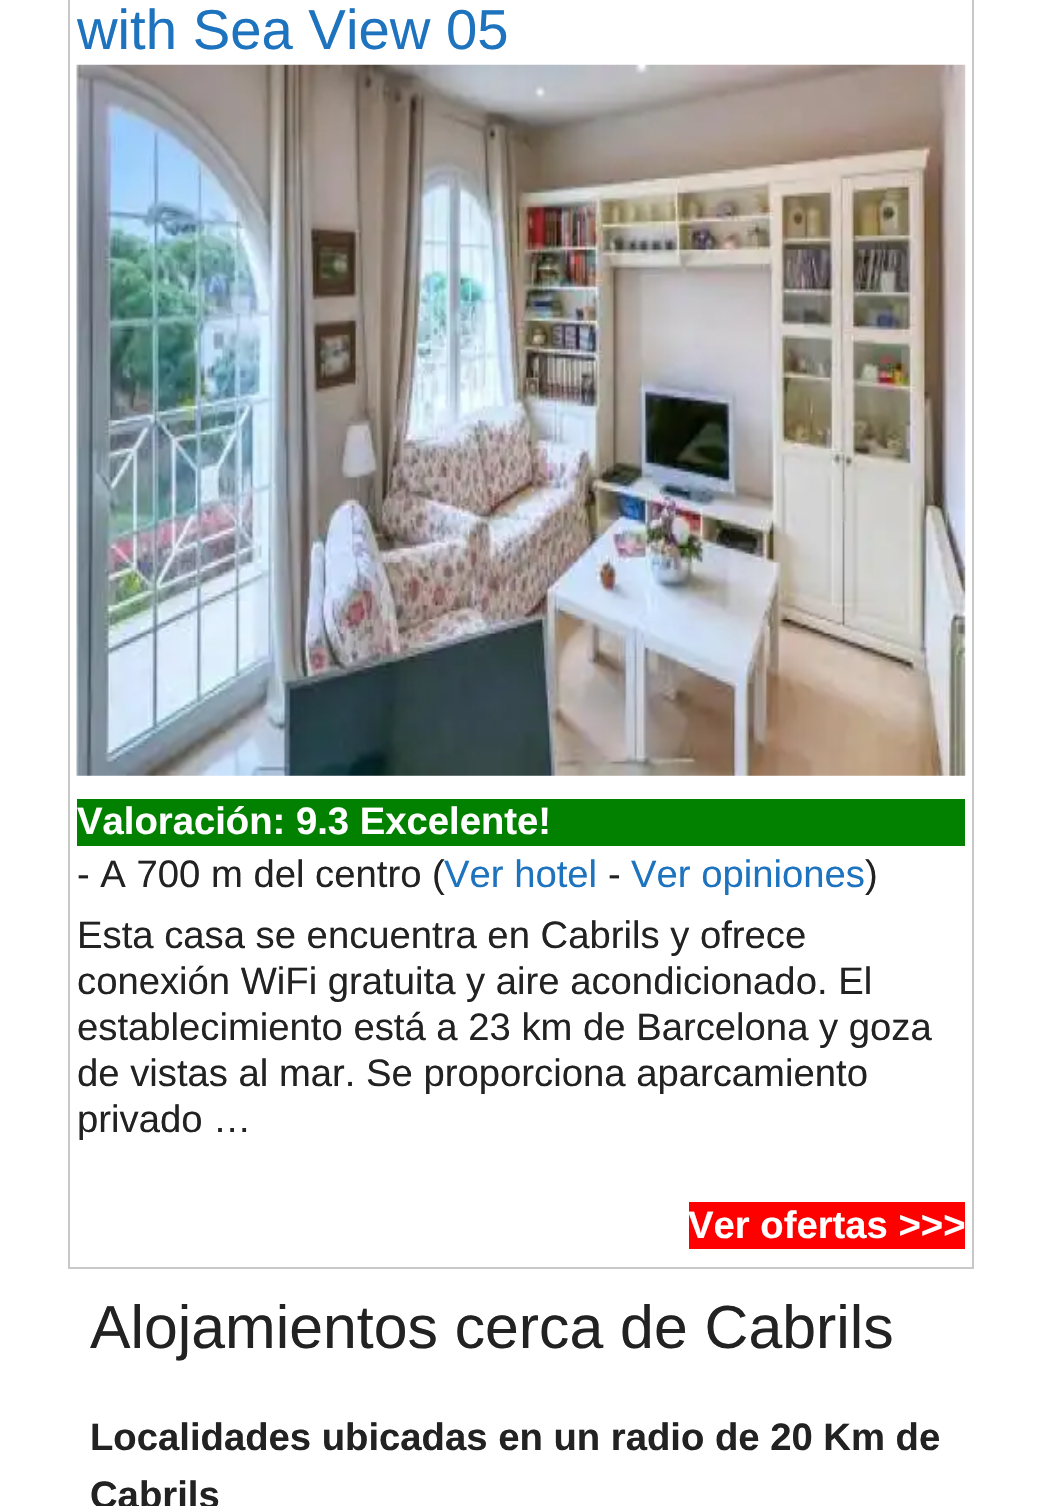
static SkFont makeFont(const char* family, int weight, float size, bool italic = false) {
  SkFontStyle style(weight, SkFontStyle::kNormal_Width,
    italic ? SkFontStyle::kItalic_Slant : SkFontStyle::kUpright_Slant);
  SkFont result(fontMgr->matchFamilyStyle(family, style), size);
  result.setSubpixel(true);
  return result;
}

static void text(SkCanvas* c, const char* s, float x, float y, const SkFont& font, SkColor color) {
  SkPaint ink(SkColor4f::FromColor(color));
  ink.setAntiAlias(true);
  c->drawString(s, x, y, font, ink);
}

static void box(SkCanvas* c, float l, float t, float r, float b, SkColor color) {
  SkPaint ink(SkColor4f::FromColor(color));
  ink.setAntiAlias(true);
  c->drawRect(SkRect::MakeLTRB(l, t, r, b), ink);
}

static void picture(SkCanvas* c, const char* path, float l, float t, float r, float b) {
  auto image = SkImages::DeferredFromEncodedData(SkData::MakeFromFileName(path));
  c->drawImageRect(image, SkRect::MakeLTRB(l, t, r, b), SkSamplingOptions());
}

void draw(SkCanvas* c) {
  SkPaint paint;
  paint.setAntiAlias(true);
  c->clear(0xffffffff);
  paint.setStyle(SkPaint::kStroke_Style);
  paint.setStrokeWidth(2);
  paint.setColor(0xffc8c8c8);
  c->drawRect(SkRect::MakeLTRB(69, -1, 973, 1268), paint);
  SkFont face1 = makeFont("Liberation Sans", 400, 56.25f);
  text(c, "with Sea View 05", 77, 49, face1, 0xff1e73be);
  picture(c, "img_01.png", 76, 64, 966, 776);
  box(c, 77, 799, 965, 846, 0xff028000);
  SkFont face2 = makeFont("Liberation Sans", 700, 38.25f);
  text(c, "Valoración: 9.3 Excelente!", 77, 834, face2, 0xffffffff);
  SkFont face3 = makeFont("Liberation Sans", 400, 38.25f);
  text(c, "- A 700 m del centro (", 77, 887, face3, 0xff222222);
  text(c, "Ver hotel", 444, 887, face3, 0xff1e73be);
  text(c, "-", 608, 887, face3, 0xff222222);
  text(c, "Ver opiniones", 631, 887, face3, 0xff1e73be);
  text(c, ")", 865, 887, face3, 0xff222222);
  text(c, "Esta casa se encuentra en Cabrils y ofrece", 77, 948, face3, 0xff222222);
  text(c, "conexión WiFi gratuita y aire acondicionado. El", 77, 994, face3, 0xff222222);
  text(c, "establecimiento está a 23 km de Barcelona y goza", 77, 1040, face3, 0xff222222);
  text(c, "de vistas al mar. Se proporciona aparcamiento", 77, 1086, face3, 0xff222222);
  text(c, "privado …", 77, 1132, face3, 0xff222222);
  box(c, 689, 1202, 965, 1249, 0xffff0000);
  text(c, "Ver ofertas >>>", 688, 1238, face2, 0xffffffff);
  SkFont face4 = makeFont("Liberation Sans", 400, 60.75f);
  text(c, "Alojamientos cerca de Cabrils", 90, 1348, face4, 0xff222222);
  text(c, "Localidades ubicadas en un radio de 20 Km de", 90, 1450, face2, 0xff222222);
  text(c, "Cabrils", 90, 1508, face2, 0xff222222);
}
